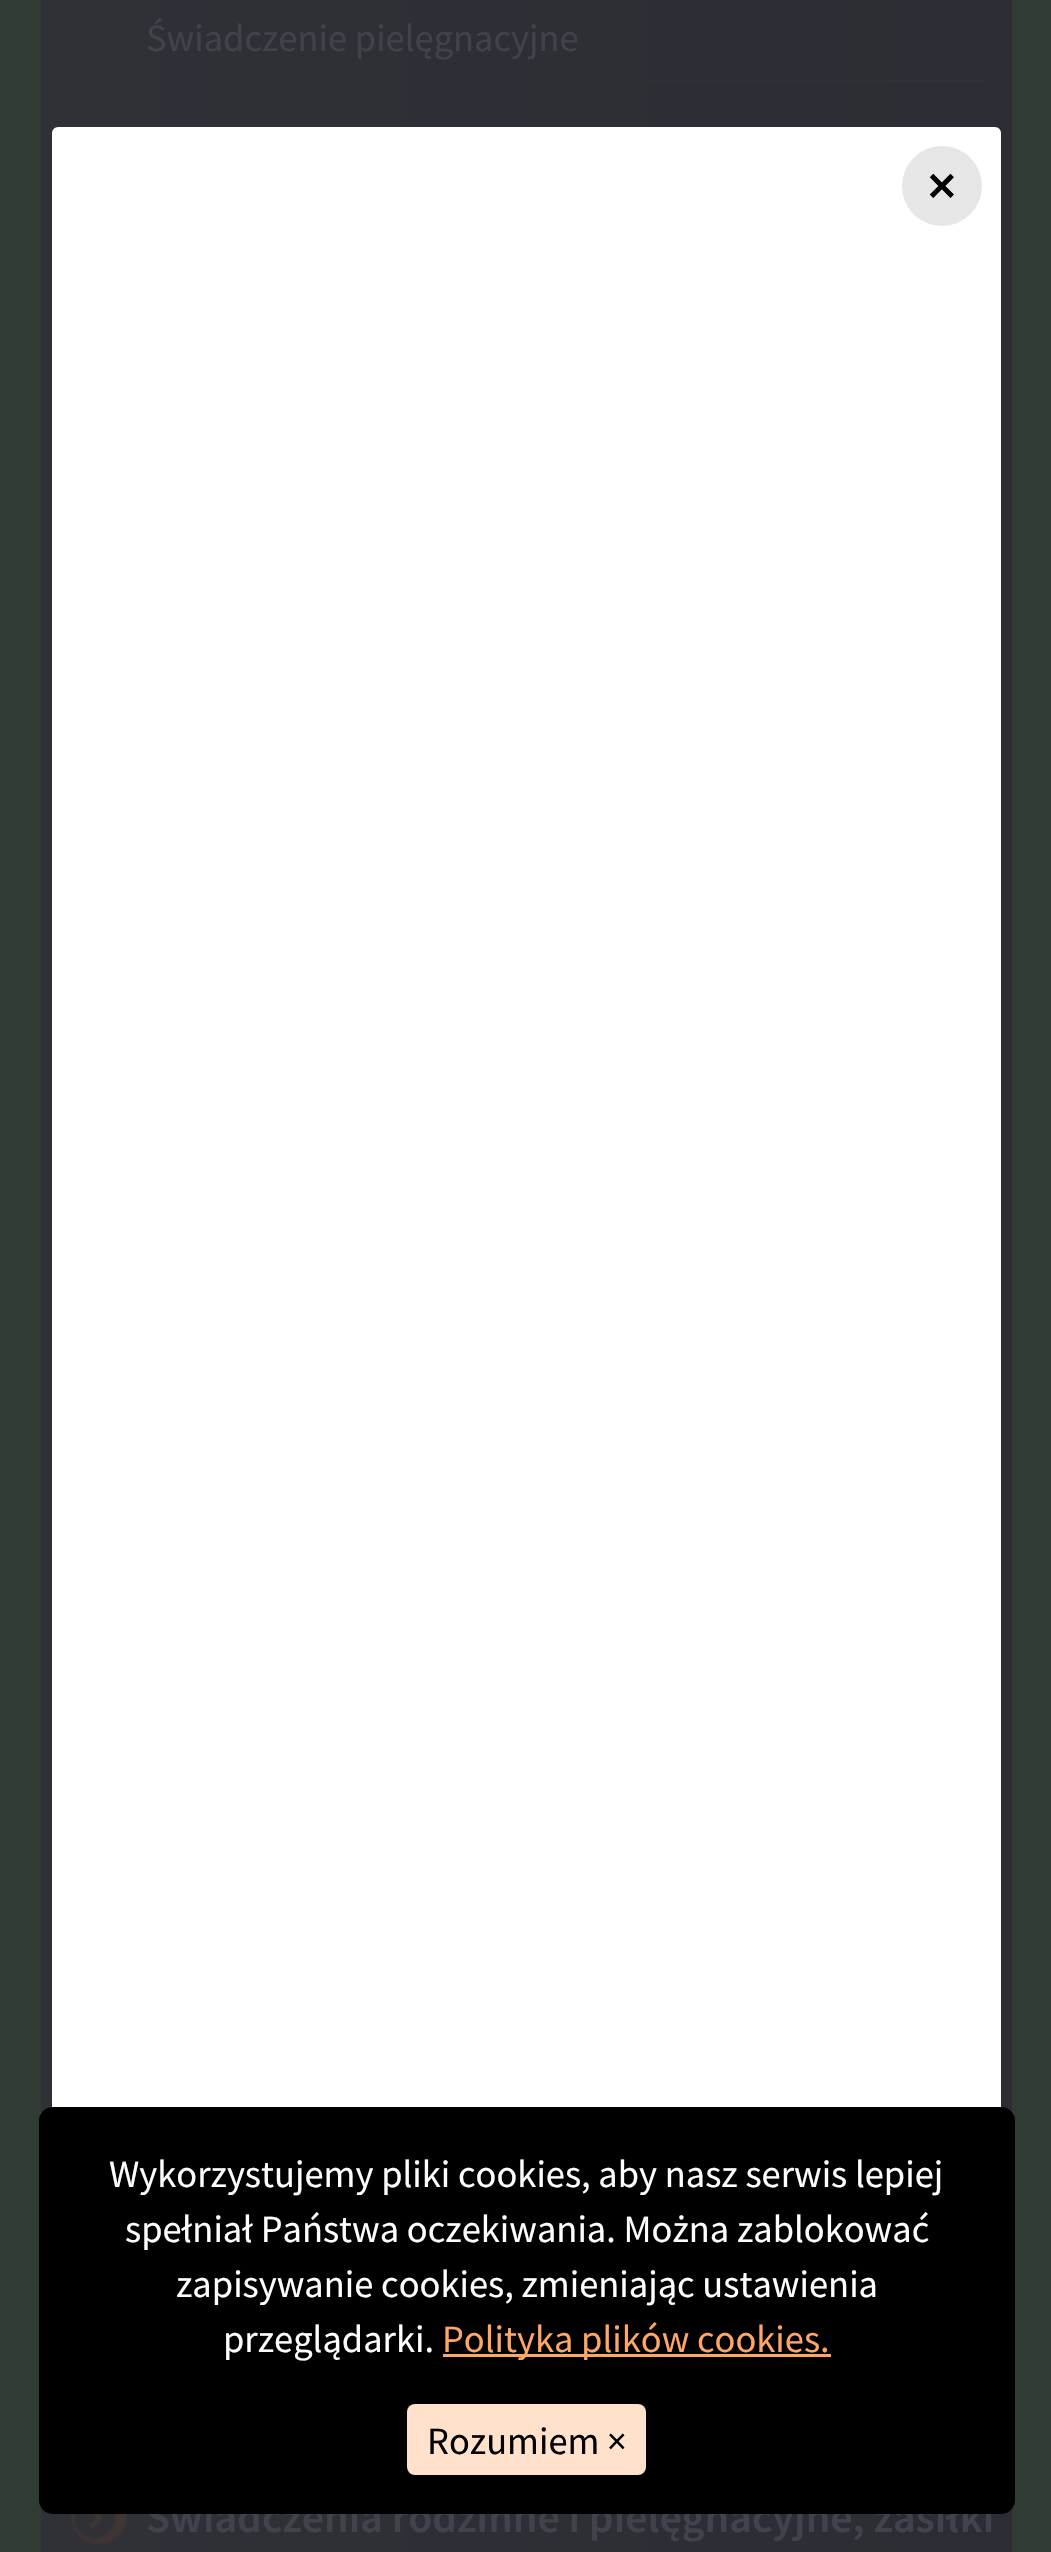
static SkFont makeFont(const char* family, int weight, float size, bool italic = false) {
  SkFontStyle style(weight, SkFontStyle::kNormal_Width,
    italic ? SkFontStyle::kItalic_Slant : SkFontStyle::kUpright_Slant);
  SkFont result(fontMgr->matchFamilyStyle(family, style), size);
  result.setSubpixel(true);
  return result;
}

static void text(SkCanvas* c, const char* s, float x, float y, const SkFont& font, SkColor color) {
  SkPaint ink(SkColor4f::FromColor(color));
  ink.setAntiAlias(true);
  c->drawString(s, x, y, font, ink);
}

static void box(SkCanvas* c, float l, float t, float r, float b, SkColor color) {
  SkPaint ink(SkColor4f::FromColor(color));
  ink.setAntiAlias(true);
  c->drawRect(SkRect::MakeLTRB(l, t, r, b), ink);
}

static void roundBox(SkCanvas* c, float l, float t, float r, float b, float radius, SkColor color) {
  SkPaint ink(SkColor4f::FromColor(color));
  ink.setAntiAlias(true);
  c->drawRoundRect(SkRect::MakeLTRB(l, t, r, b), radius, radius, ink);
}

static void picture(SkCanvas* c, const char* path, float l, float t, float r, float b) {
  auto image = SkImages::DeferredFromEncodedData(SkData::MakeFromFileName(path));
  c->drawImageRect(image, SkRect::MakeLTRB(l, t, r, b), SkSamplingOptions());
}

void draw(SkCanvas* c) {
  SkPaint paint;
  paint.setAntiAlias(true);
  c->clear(0xff303b33);
  {
    const SkColor colors[] = {0xff303037, 0xff2c2d34};
    const float stops[] = {0, 1};
    const SkPoint ends[] = {{41, 2441}, {1012, 2441}};
    paint.setShader(SkGradientShader::MakeLinear(ends, colors, stops, 2, SkTileMode::kClamp));
    paint.setAlpha(255);
  }
  c->drawRect(SkRect::MakeLTRB(41, 0, 1012, 2552), paint);
  box(c, 648, 80, 985, 83, 0xff303037);
  SkFont face1 = makeFont("Source Sans Pro", 400, 38.5f);
  text(c, "Świadczenie pielęgnacyjne", 146, 51, face1, 0xff40434c);
  picture(c, "img_01.png", 71, 2514, 127, 2544);
  SkFont face2 = makeFont("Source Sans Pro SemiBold", 600, 44);
  text(c, "Świadczenia rodzinne i pielęgnacyjne, zasiłki", 146, 2532, face2, 0xff40434c);
  roundBox(c, 52, 127, 1001, 2426, 6, 0xffffffff);
  paint.setShader(nullptr);
  paint.setColor(0xffe6e6e6);
  c->drawCircle(942, 186, 40, paint);
  SkFont face3 = makeFont("Source Sans Pro SemiBold", 600, 58);
  text(c, "×", 927, 205, face3, 0xff000000);
  roundBox(c, 39, 2107, 1015, 2514, 14, 0xff000000);
  text(c, "Wykorzystujemy pliki cookies, aby nasz serwis lepiej", 109, 2187, face1, 0xffffffff);
  text(c, "spełniał Państwa oczekiwania. Można zablokować", 125, 2242, face1, 0xffffffff);
  text(c, "zapisywanie cookies, zmieniając ustawienia", 176, 2297, face1, 0xffffffff);
  text(c, "przeglądarki.", 223, 2352, face1, 0xffffffff);
  box(c, 443, 2354, 831, 2357, 0xffffa666);
  text(c, "Polityka plików cookies.", 442, 2352, face1, 0xffffa666);
  roundBox(c, 407, 2404, 646, 2475, 8, 0xffffe1cc);
  text(c, "Rozumiem ×", 427, 2454, face1, 0xff000000);
}
